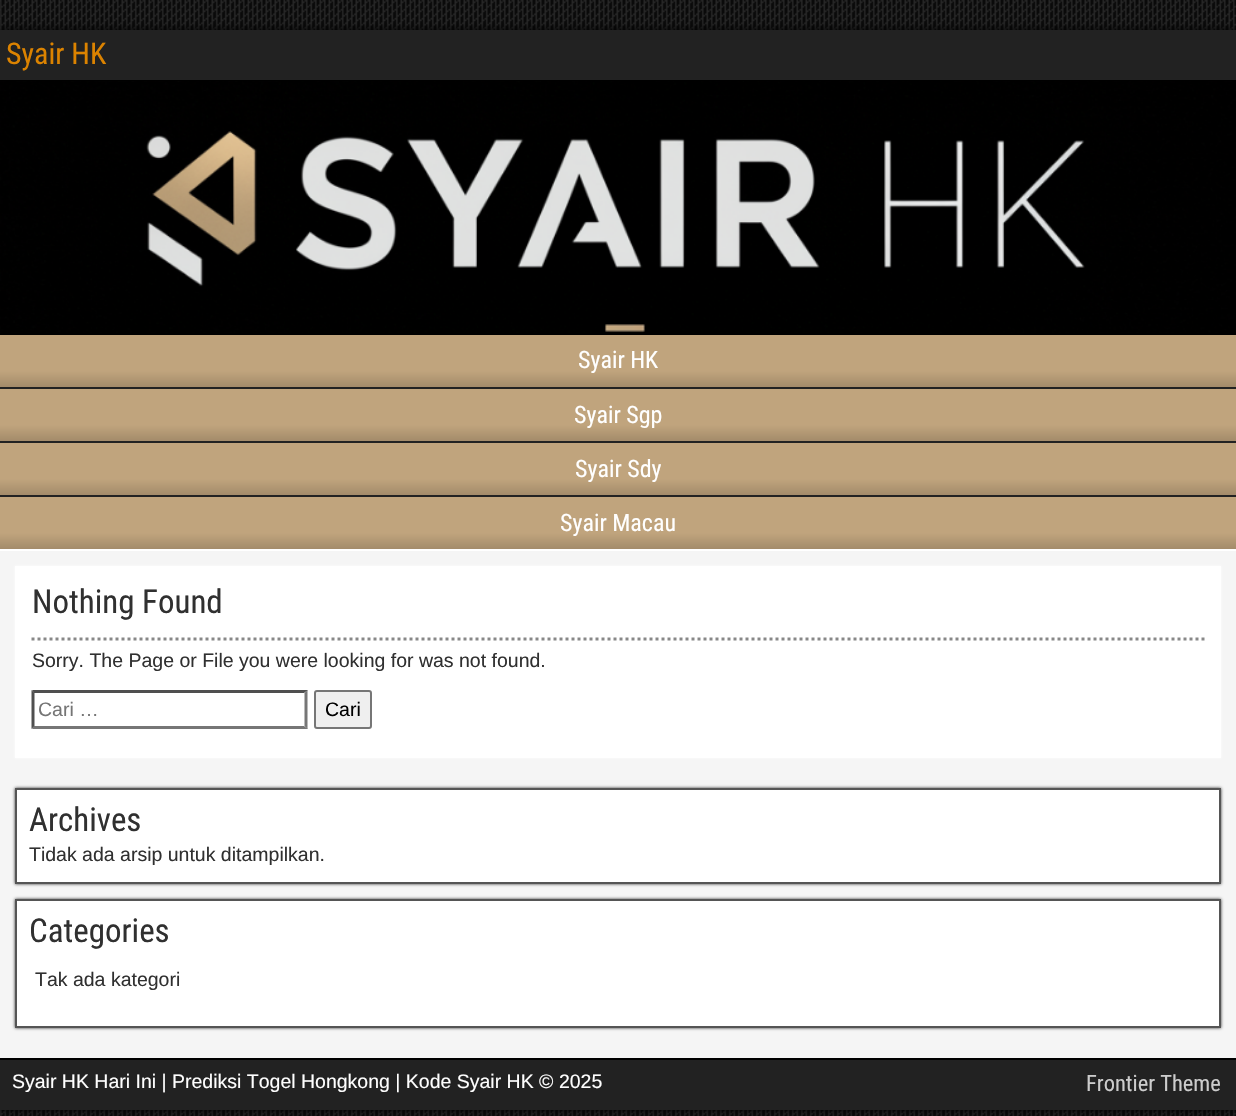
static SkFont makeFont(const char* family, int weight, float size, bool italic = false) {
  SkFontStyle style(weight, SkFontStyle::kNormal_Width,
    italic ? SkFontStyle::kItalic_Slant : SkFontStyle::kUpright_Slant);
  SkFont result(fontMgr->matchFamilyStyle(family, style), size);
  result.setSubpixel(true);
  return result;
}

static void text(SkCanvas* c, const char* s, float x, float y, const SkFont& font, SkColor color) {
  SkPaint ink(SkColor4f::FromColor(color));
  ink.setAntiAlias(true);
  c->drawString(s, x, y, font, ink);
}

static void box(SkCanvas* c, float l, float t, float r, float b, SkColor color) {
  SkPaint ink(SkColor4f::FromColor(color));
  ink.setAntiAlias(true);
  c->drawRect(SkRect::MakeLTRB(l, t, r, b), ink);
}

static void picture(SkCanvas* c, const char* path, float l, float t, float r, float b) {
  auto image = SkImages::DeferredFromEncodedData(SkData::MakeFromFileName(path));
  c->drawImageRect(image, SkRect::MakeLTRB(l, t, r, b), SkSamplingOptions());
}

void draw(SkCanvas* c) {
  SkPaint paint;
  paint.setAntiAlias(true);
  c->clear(0xff0a0a0a);
  picture(c, "img_01.png", 0, 0, 1236, 1116);
  paint.setColor(0xff000000);
  paint.setMaskFilter(SkMaskFilter::MakeBlur(kNormal_SkBlurStyle, 4.5f));
  c->drawRect(SkRect::MakeLTRB(0, 30, 1236, 1110), paint);
  paint.setMaskFilter(nullptr);
  box(c, 0, 30, 1236, 80, 0xff222222);
  box(c, 0, 80, 1236, 81, 0xff000000);
  SkFont face1 = makeFont("Roboto Condensed", 400, 30);
  text(c, "Syair HK", 6, 64, face1, 0xffdc8300);
  box(c, 0, 333, 1236, 335, 0xff000000);
  picture(c, "img_02.png", 0, 81, 1236, 333);
  box(c, 0, 549, 1236, 551, 0xffffffff);
  {
    const SkColor colors[] = {0xffc0a47d, 0xffa38b6a};
    const float stops[] = {0.7f, 1};
    const SkPoint ends[] = {{618, 334}, {618, 387}};
    paint.setShader(SkGradientShader::MakeLinear(ends, colors, stops, 2, SkTileMode::kClamp));
    paint.setAlpha(255);
  }
  c->drawRect(SkRect::MakeLTRB(0, 335, 1236, 387), paint);
  box(c, 0, 387, 1236, 389, 0xff222222);
  SkFont face2 = makeFont("Roboto Condensed", 400, 24);
  text(c, "Syair HK", 578, 368, face2, 0xffffffff);
  {
    const SkColor colors[] = {0xffc0a47d, 0xffa38b6a};
    const float stops[] = {0.7f, 1};
    const SkPoint ends[] = {{618, 388}, {618, 441}};
    paint.setShader(SkGradientShader::MakeLinear(ends, colors, stops, 2, SkTileMode::kClamp));
    paint.setAlpha(255);
  }
  c->drawRect(SkRect::MakeLTRB(0, 389, 1236, 441), paint);
  box(c, 0, 441, 1236, 443, 0xff222222);
  text(c, "Syair Sgp", 574, 423, face2, 0xffffffff);
  {
    const SkColor colors[] = {0xffc0a47d, 0xffa38b6a};
    const float stops[] = {0.7f, 1};
    const SkPoint ends[] = {{618, 442}, {618, 495}};
    paint.setShader(SkGradientShader::MakeLinear(ends, colors, stops, 2, SkTileMode::kClamp));
    paint.setAlpha(255);
  }
  c->drawRect(SkRect::MakeLTRB(0, 443, 1236, 495), paint);
  box(c, 0, 495, 1236, 497, 0xff222222);
  text(c, "Syair Sdy", 575, 477, face2, 0xffffffff);
  {
    const SkColor colors[] = {0xffc0a47d, 0xffa38b6a};
    const float stops[] = {0.7f, 1};
    const SkPoint ends[] = {{618, 496}, {618, 549}};
    paint.setShader(SkGradientShader::MakeLinear(ends, colors, stops, 2, SkTileMode::kClamp));
    paint.setAlpha(255);
  }
  c->drawRect(SkRect::MakeLTRB(0, 497, 1236, 549), paint);
  text(c, "Syair Macau", 560, 531, face2, 0xffffffff);
  box(c, 0, 551, 1236, 1058, 0xfff5f5f5);
  paint.setShader(nullptr);
  paint.setColor(0xffffffff);
  paint.setMaskFilter(SkMaskFilter::MakeBlur(kNormal_SkBlurStyle, 1.5f));
  c->drawRect(SkRect::MakeLTRB(15, 566, 1221, 758), paint);
  paint.setMaskFilter(nullptr);
  box(c, 15, 566, 1221, 758, 0xffffffff);
  paint.setStyle(SkPaint::kStroke_Style);
  paint.setStrokeWidth(3);
  paint.setColor(0xff888888);
  paint.setPathEffect(SkDashPathEffect::Make({{3, 3}}, 0));
  c->drawPath(SkPathBuilder().moveTo(31.5f, 639).lineTo(1204.5f, 639).detach(), paint);
  paint.setPathEffect(nullptr);
  SkFont face3 = makeFont("Roboto Condensed", 400, 33);
  text(c, "Nothing Found", 32, 613, face3, 0xff303030);
  SkFont face4 = makeFont("Liberation Sans", 400, 19.5f);
  text(c, "Sorry. The Page or File you were looking for was not found.", 32, 667, face4, 0xff303030);
  paint.setStyle(SkPaint::kFill_Style);
  paint.setColor(0xff4f4f4f);
  c->drawPath(SkPathBuilder().moveTo(32, 690).lineTo(308, 690).lineTo(304, 693).lineTo(34, 693).close().detach(), paint);
  paint.setColor(0xff767676);
  c->drawPath(SkPathBuilder().moveTo(307.5f, 690).lineTo(307.5f, 729).lineTo(304.5f, 726).lineTo(304.5f, 693).close().detach(), paint);
  c->drawPath(SkPathBuilder().moveTo(308, 729).lineTo(32, 729).lineTo(34, 726).lineTo(304, 726).close().detach(), paint);
  paint.setColor(0xff4f4f4f);
  c->drawPath(SkPathBuilder().moveTo(31.5f, 729).lineTo(31.5f, 690).lineTo(34.5f, 693).lineTo(34.5f, 726).close().detach(), paint);
  text(c, "Cari …", 38, 716, face4, 0xff757575);
  paint.setColor(0xffefefef);
  c->drawRoundRect(SkRect::MakeLTRB(315, 691, 371, 728), 2, 2, paint);
  paint.setStyle(SkPaint::kStroke_Style);
  paint.setStrokeWidth(2);
  paint.setColor(0xff767676);
  c->drawRoundRect(SkRect::MakeLTRB(315, 691, 371, 728), 2, 2, paint);
  text(c, "Cari", 325, 716, face4, 0xff000000);
  paint.setStyle(SkPaint::kFill_Style);
  paint.setColor(0xff333333);
  paint.setMaskFilter(SkMaskFilter::MakeBlur(kNormal_SkBlurStyle, 1.5f));
  c->drawRect(SkRect::MakeLTRB(15, 788, 1221, 884), paint);
  paint.setMaskFilter(nullptr);
  paint.setColor(0xffffffff);
  c->drawRect(SkRect::MakeLTRB(16, 789, 1220, 883), paint);
  paint.setStyle(SkPaint::kStroke_Style);
  paint.setColor(0xff555555);
  c->drawRect(SkRect::MakeLTRB(16, 789, 1220, 883), paint);
  text(c, "Archives", 29, 831, face3, 0xff303030);
  text(c, "Tidak ada arsip untuk ditampilkan.", 29, 861, face4, 0xff303030);
  paint.setStyle(SkPaint::kFill_Style);
  paint.setColor(0xff333333);
  paint.setMaskFilter(SkMaskFilter::MakeBlur(kNormal_SkBlurStyle, 1.5f));
  c->drawRect(SkRect::MakeLTRB(15, 899, 1221, 1028), paint);
  paint.setMaskFilter(nullptr);
  paint.setColor(0xffffffff);
  c->drawRect(SkRect::MakeLTRB(16, 900, 1220, 1027), paint);
  paint.setStyle(SkPaint::kStroke_Style);
  paint.setColor(0xff555555);
  c->drawRect(SkRect::MakeLTRB(16, 900, 1220, 1027), paint);
  text(c, "Categories", 29, 942, face3, 0xff303030);
  text(c, "Tak ada kategori", 35, 986, face4, 0xff303030);
  box(c, 0, 1060, 1236, 1110, 0xff222222);
  box(c, 0, 1058, 1236, 1060, 0xff000000);
  text(c, "Syair HK Hari Ini | Prediksi Togel Hongkong | Kode Syair HK © 2025", 12, 1088, face4, 0xffffffff);
  SkFont face5 = makeFont("Roboto Condensed", 400, 22.5f);
  text(c, "Frontier Theme", 1086, 1091, face5, 0xffcccccc);
}
